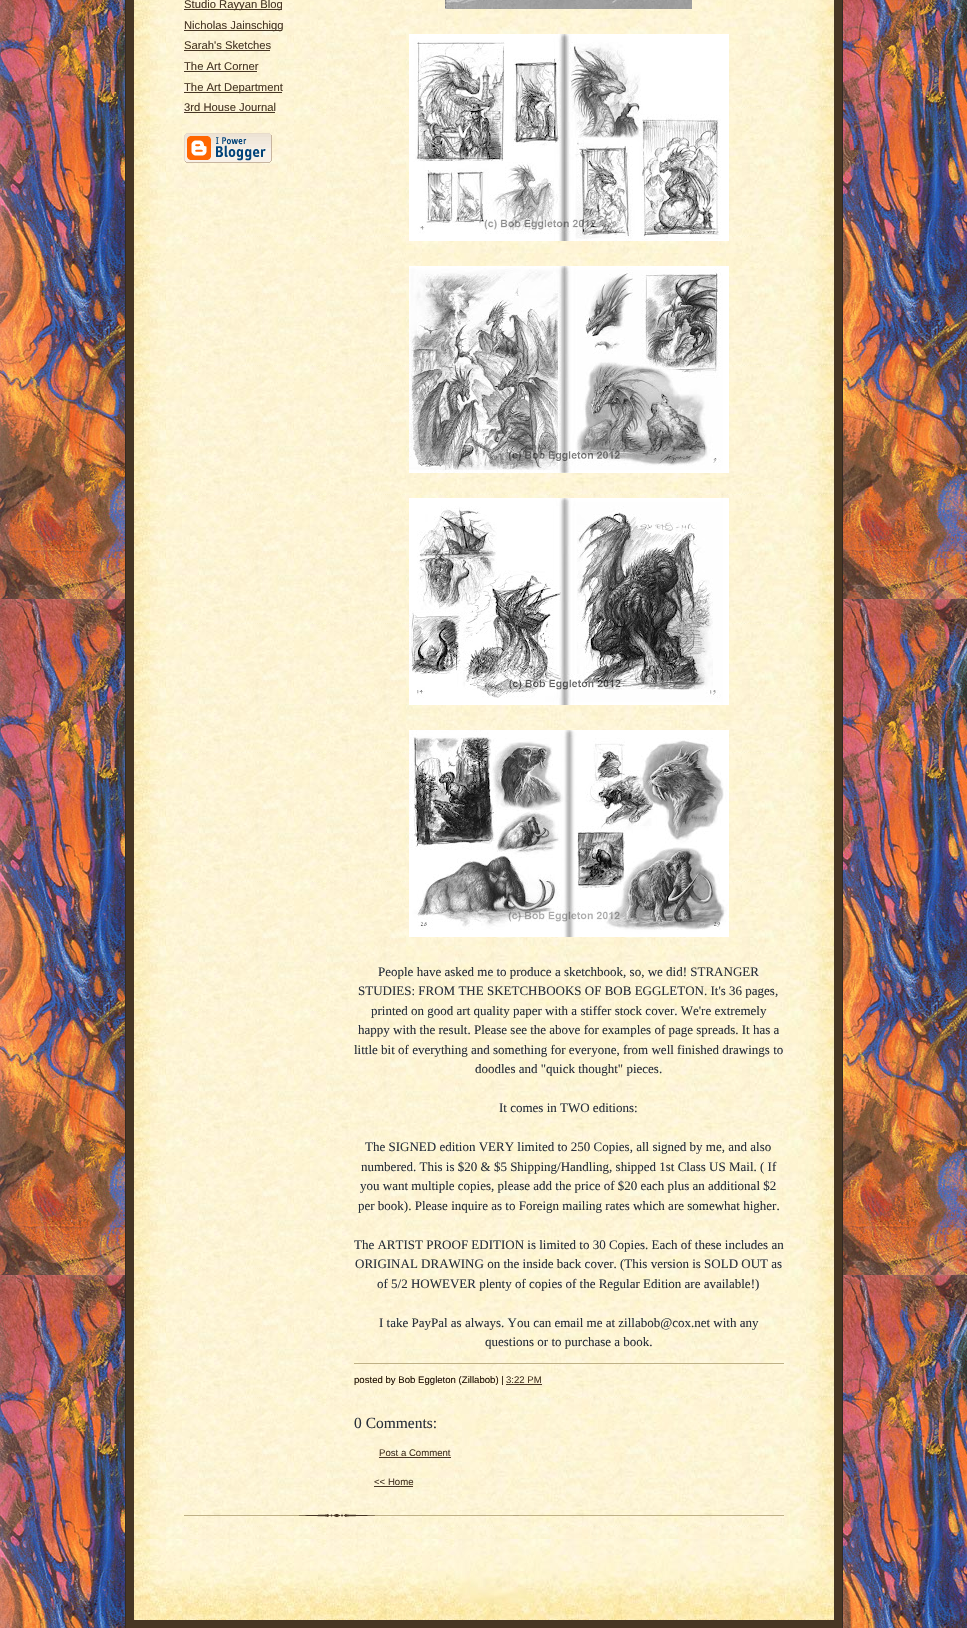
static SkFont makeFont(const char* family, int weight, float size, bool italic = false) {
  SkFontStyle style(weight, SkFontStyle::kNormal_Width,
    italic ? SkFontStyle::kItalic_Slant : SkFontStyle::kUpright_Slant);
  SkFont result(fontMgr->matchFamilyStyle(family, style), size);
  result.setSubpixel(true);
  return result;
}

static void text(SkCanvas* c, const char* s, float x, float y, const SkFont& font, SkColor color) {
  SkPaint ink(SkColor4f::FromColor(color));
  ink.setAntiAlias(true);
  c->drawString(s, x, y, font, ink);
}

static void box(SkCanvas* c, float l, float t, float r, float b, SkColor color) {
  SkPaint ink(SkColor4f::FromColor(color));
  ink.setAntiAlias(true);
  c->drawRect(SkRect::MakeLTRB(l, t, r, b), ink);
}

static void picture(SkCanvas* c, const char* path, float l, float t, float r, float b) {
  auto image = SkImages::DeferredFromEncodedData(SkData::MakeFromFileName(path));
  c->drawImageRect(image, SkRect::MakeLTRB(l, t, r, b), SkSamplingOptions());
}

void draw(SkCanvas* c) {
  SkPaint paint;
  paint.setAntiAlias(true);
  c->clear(0xffffffff);
  picture(c, "img_01.png", 0, 0, 967, 1628);
  box(c, 126, 0, 842, 1628, 0xff473624);
  box(c, 842, 0, 843, 1628, 0xff332a24);
  box(c, 125, 0, 126, 1628, 0xff332a24);
  picture(c, "img_02.png", 134, 0, 834, 1539);
  box(c, 184, 9, 282, 10, 0xff473624);
  SkFont face1 = makeFont("Liberation Sans", 400, 11.25f);
  text(c, "Studio Rayyan Blog", 184, 8, face1, 0xff473624);
  box(c, 184, 30, 282, 31, 0xff473624);
  text(c, "Nicholas Jainschigg", 184, 29, face1, 0xff473624);
  text(c, "Sarah's Sketches", 184, 49, face1, 0xff473624);
  box(c, 184, 50, 270, 51, 0xff473624);
  text(c, "The Art Corner", 184, 70, face1, 0xff473624);
  box(c, 184, 71, 257, 72, 0xff473624);
  box(c, 184, 92, 282, 93, 0xff473624);
  text(c, "The Art Department", 184, 91, face1, 0xff473624);
  text(c, "3rd House Journal", 184, 111, face1, 0xff473624);
  box(c, 184, 112, 275, 113, 0xff473624);
  picture(c, "img_03.png", 184, 133, 272, 163);
  picture(c, "img_04.png", 445, 0, 692, 9);
  picture(c, "img_05.png", 409, 34, 729, 241);
  picture(c, "img_06.png", 409, 266, 729, 473);
  picture(c, "img_07.png", 409, 498, 729, 705);
  picture(c, "img_08.png", 409, 730, 729, 937);
  SkFont face2 = makeFont("Liberation Serif", 400, 13);
  text(c, "People have asked me to produce a sketchbook, so, we did! STRANGER", 378, 976, face2, 0xff29303b);
  text(c, "STUDIES: FROM THE SKETCHBOOKS OF BOB EGGLETON. It's 36 pages,", 358, 995, face2, 0xff29303b);
  text(c, "printed on good art quality paper with a stiffer stock cover. We're extremely", 371, 1015, face2, 0xff29303b);
  text(c, "happy with the result. Please see the above for examples of page spreads. It has a", 358, 1034, face2, 0xff29303b);
  text(c, "little bit of everything and something for everyone, from well finished drawings to", 354, 1054, face2, 0xff29303b);
  text(c, "doodles and \"quick thought\" pieces.", 475, 1073, face2, 0xff29303b);
  text(c, "It comes in TWO editions:", 499, 1112, face2, 0xff29303b);
  text(c, "The SIGNED edition VERY limited to 250 Copies, all signed by me, and also", 365, 1151, face2, 0xff29303b);
  text(c, "numbered. This is $20 & $5 Shipping/Handling, shipped 1st Class US Mail. ( If", 361, 1171, face2, 0xff29303b);
  text(c, "you want multiple copies, please add the price of $20 each plus an additional $2", 360, 1190, face2, 0xff29303b);
  text(c, "per book). Please inquire as to Foreign mailing rates which are somewhat higher.", 358, 1210, face2, 0xff29303b);
  text(c, "The ARTIST PROOF EDITION is limited to 30 Copies. Each of these includes an", 354, 1249, face2, 0xff29303b);
  text(c, "ORIGINAL DRAWING on the inside back cover. (This version is SOLD OUT as", 355, 1268, face2, 0xff29303b);
  text(c, "of 5/2 HOWEVER plenty of copies of the Regular Edition are available!)", 377, 1288, face2, 0xff29303b);
  text(c, "I take PayPal as always. You can email me at zillabob@cox.net with any", 379, 1327, face2, 0xff29303b);
  text(c, "questions or to purchase a book.", 485, 1346, face2, 0xff29303b);
  box(c, 354, 1363, 784, 1364, 0xffbfb186);
  SkFont face3 = makeFont("Liberation Sans", 400, 9.6f);
  text(c, "posted by Bob Eggleton (Zillabob) |", 354, 1383, face3, 0xff211104);
  text(c, "3:22 PM", 506, 1383, face3, 0xff473624);
  box(c, 506, 1384, 542, 1385, 0xff473624);
  SkFont face4 = makeFont("Liberation Serif", 400, 15.5f);
  text(c, "0 Comments:", 354, 1428, face4, 0xff29303b);
  text(c, "Post a Comment", 379, 1456, face3, 0xff473624);
  box(c, 379, 1457, 451, 1458, 0xff473624);
  text(c, "<< Home", 374, 1485, face3, 0xff473624);
  box(c, 374, 1486, 413, 1487, 0xff473624);
  picture(c, "img_09.png", 184, 1514, 784, 1517);
  picture(c, "img_10.png", 134, 1539, 834, 1620);
}
